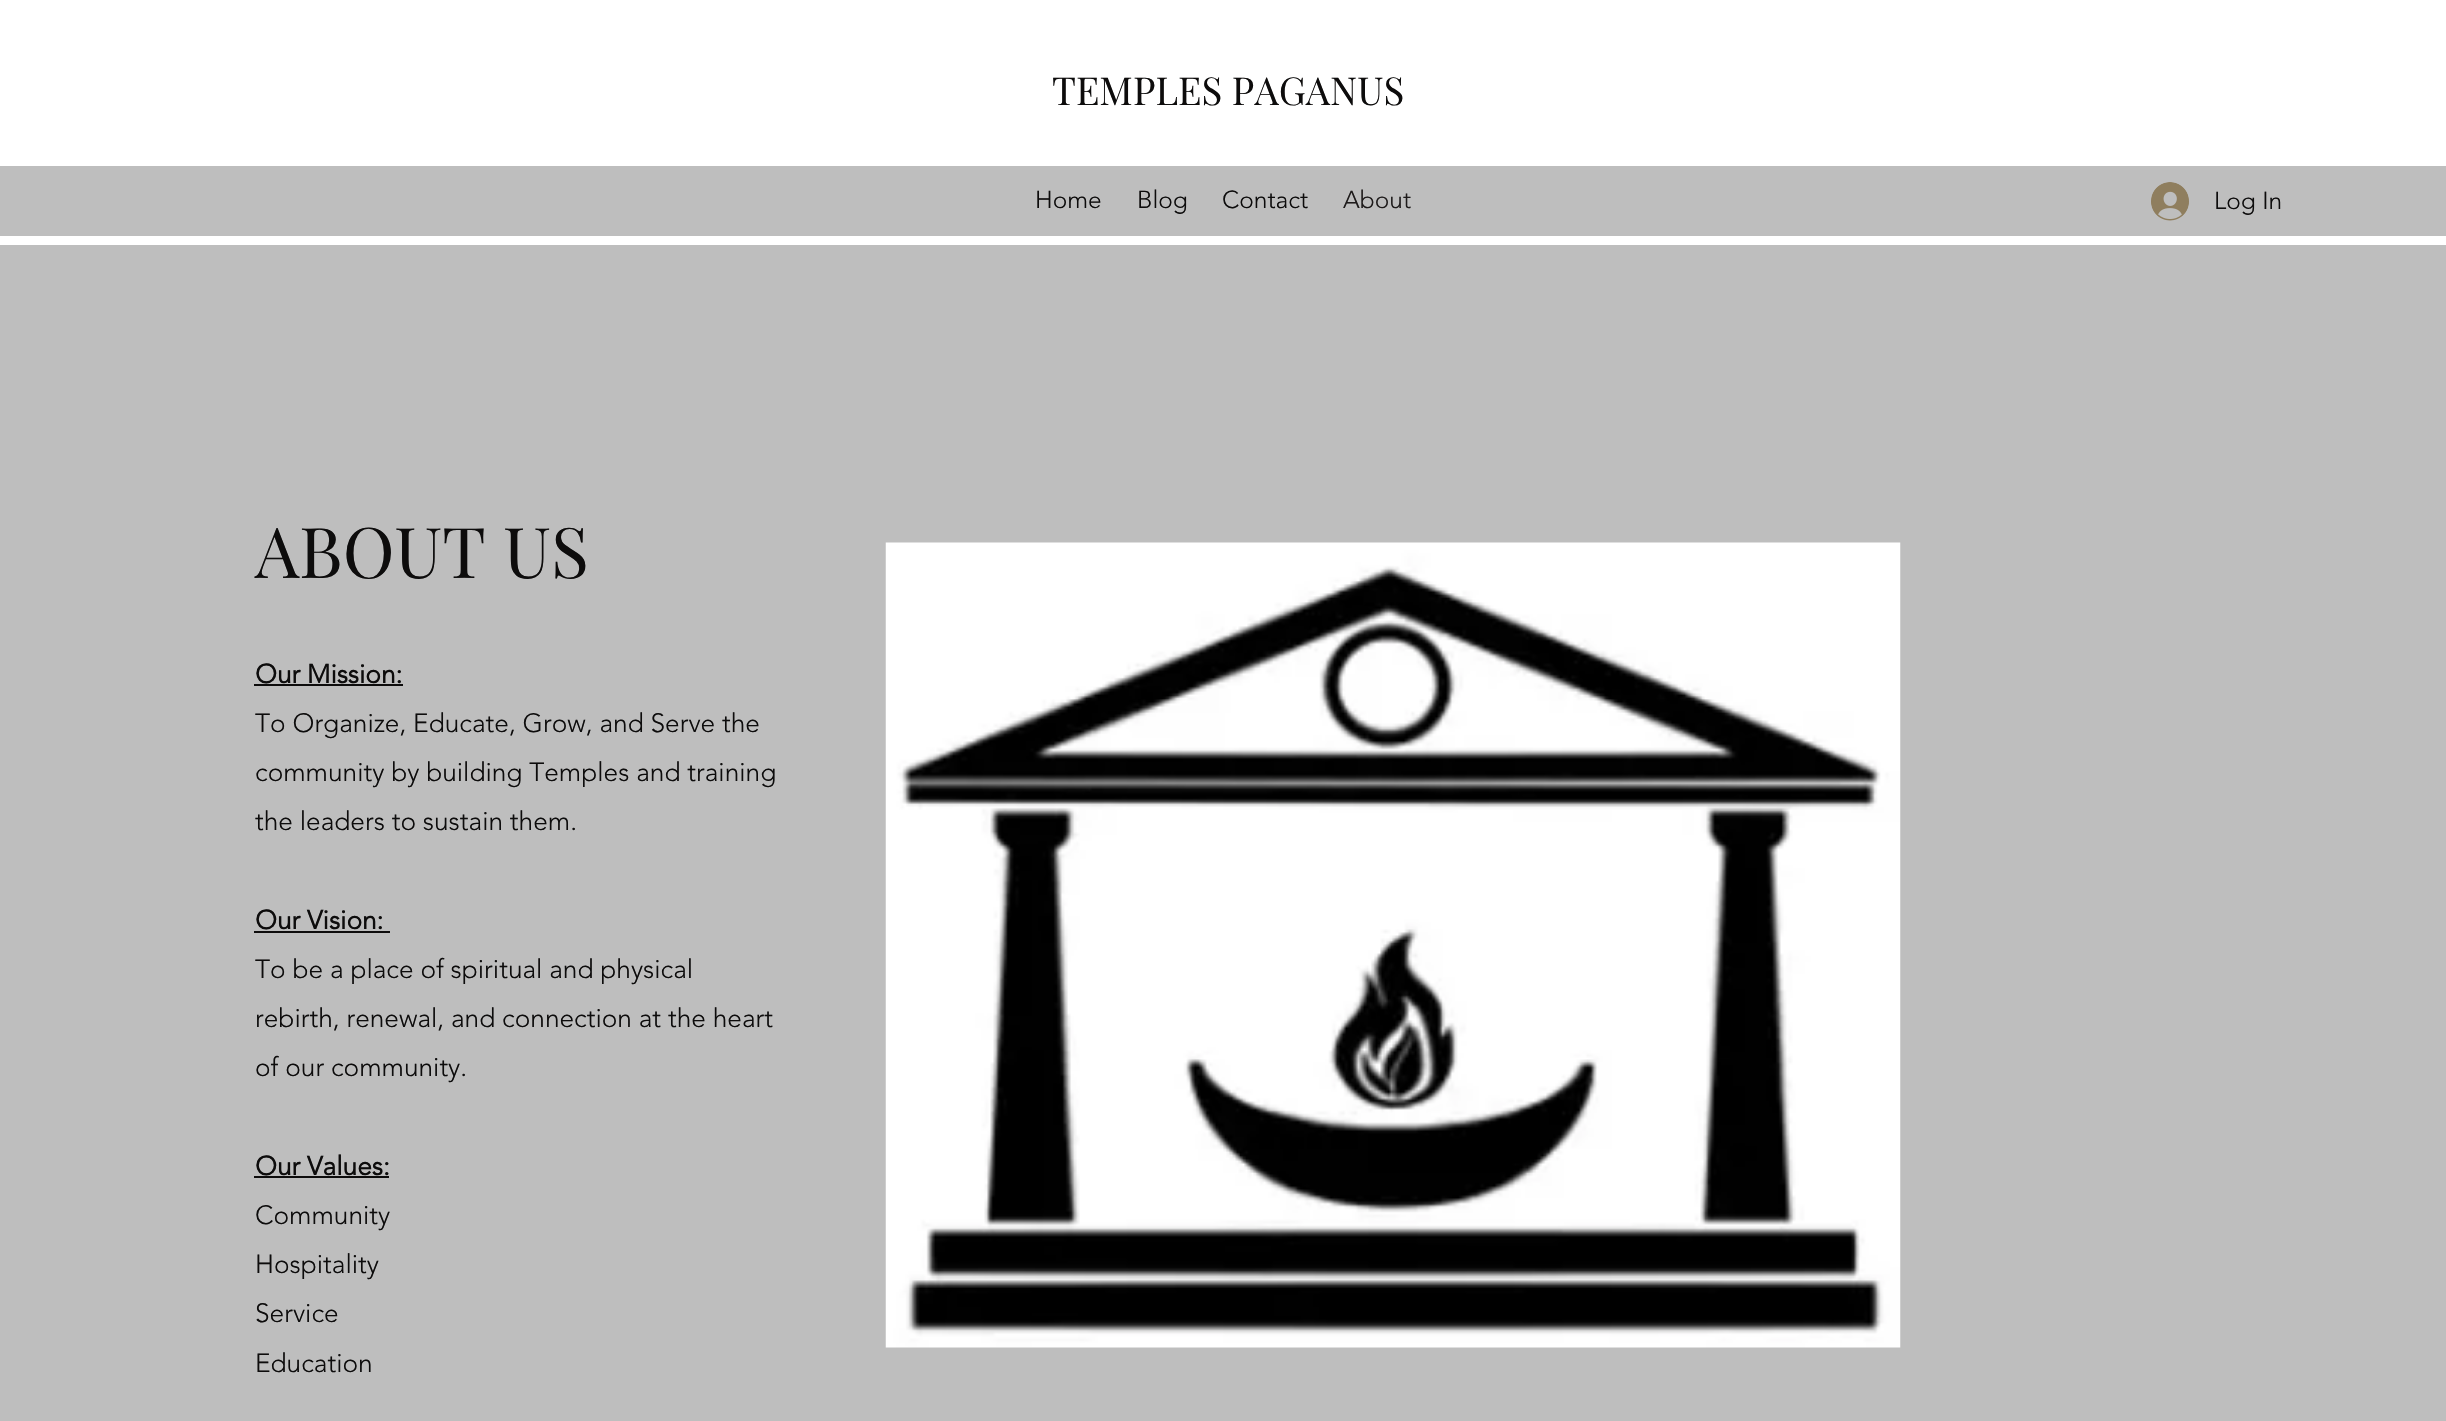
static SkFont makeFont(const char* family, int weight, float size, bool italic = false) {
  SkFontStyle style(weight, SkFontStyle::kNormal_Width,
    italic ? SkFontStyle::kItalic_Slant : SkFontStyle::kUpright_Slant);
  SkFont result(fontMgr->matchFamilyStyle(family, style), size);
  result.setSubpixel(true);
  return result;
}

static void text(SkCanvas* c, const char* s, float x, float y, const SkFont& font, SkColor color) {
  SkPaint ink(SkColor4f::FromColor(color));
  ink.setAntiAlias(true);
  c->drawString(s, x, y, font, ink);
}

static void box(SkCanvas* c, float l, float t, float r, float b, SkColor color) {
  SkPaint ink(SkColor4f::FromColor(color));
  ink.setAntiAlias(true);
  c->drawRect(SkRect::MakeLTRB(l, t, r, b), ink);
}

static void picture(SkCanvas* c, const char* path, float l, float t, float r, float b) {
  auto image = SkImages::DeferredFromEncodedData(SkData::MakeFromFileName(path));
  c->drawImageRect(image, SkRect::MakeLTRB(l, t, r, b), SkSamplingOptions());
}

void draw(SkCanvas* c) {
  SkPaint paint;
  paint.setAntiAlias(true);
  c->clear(0xffffffff);
  SkFont face1 = makeFont("Playfair Display", 400, 38.5f);
  text(c, "TEMPLES PAGANUS", 1052, 105, face1, 0xff0d0c0c);
  box(c, 0, 166, 2446, 236, 0xffbebebe);
  SkFont face2 = makeFont("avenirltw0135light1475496", 300, 24.5f);
  text(c, "Home", 1035, 208, face2, 0xff0d0c0c);
  text(c, "Blog", 1137, 208, face2, 0xff0d0c0c);
  text(c, "Contact", 1222, 208, face2, 0xff0d0c0c);
  text(c, "About", 1343, 208, face2, 0xff1e1b1b);
  picture(c, "img_01.png", 2151, 182, 2189, 221);
  text(c, "Log In", 2214, 209, face2, 0xff0d0c0c);
  box(c, 0, 245, 2446, 1421, 0xffbebebe);
  SkFont face3 = makeFont("Playfair Display", 400, 70);
  text(c, "ABOUT US", 255, 578, face3, 0xff0d0c0c);
  SkFont face4 = makeFont("avenirltw0135light1475496", 700, 26.25f);
  text(c, "Our Mission:", 255, 683, face4, 0xff0d0c0c);
  box(c, 254, 684, 403, 686, 0xff0d0c0c);
  SkFont face5 = makeFont("avenirltw0135light1475496", 300, 26.25f);
  text(c, "To Organize, Educate, Grow, and Serve the", 255, 732, face5, 0xff0d0c0c);
  text(c, "community by building Temples and training", 255, 781, face5, 0xff0d0c0c);
  text(c, "the leaders to sustain them.", 255, 830, face5, 0xff0d0c0c);
  text(c, "Our Vision:", 255, 929, face4, 0xff0d0c0c);
  box(c, 254, 931, 390, 933, 0xff0d0c0c);
  text(c, "To be a place of spiritual and physical", 255, 978, face5, 0xff0d0c0c);
  text(c, "rebirth, renewal, and connection at the heart", 255, 1027, face5, 0xff0d0c0c);
  text(c, "of our community.", 255, 1076, face5, 0xff0d0c0c);
  text(c, "Our Values:", 255, 1175, face4, 0xff0d0c0c);
  box(c, 254, 1176, 389, 1178, 0xff0d0c0c);
  text(c, "Community", 255, 1224, face5, 0xff0d0c0c);
  text(c, "Hospitality", 255, 1273, face5, 0xff0d0c0c);
  text(c, "Service", 255, 1322, face5, 0xff0d0c0c);
  text(c, "Education", 255, 1372, face5, 0xff0d0c0c);
  picture(c, "img_02.png", 885, 542, 1901, 1348);
}
